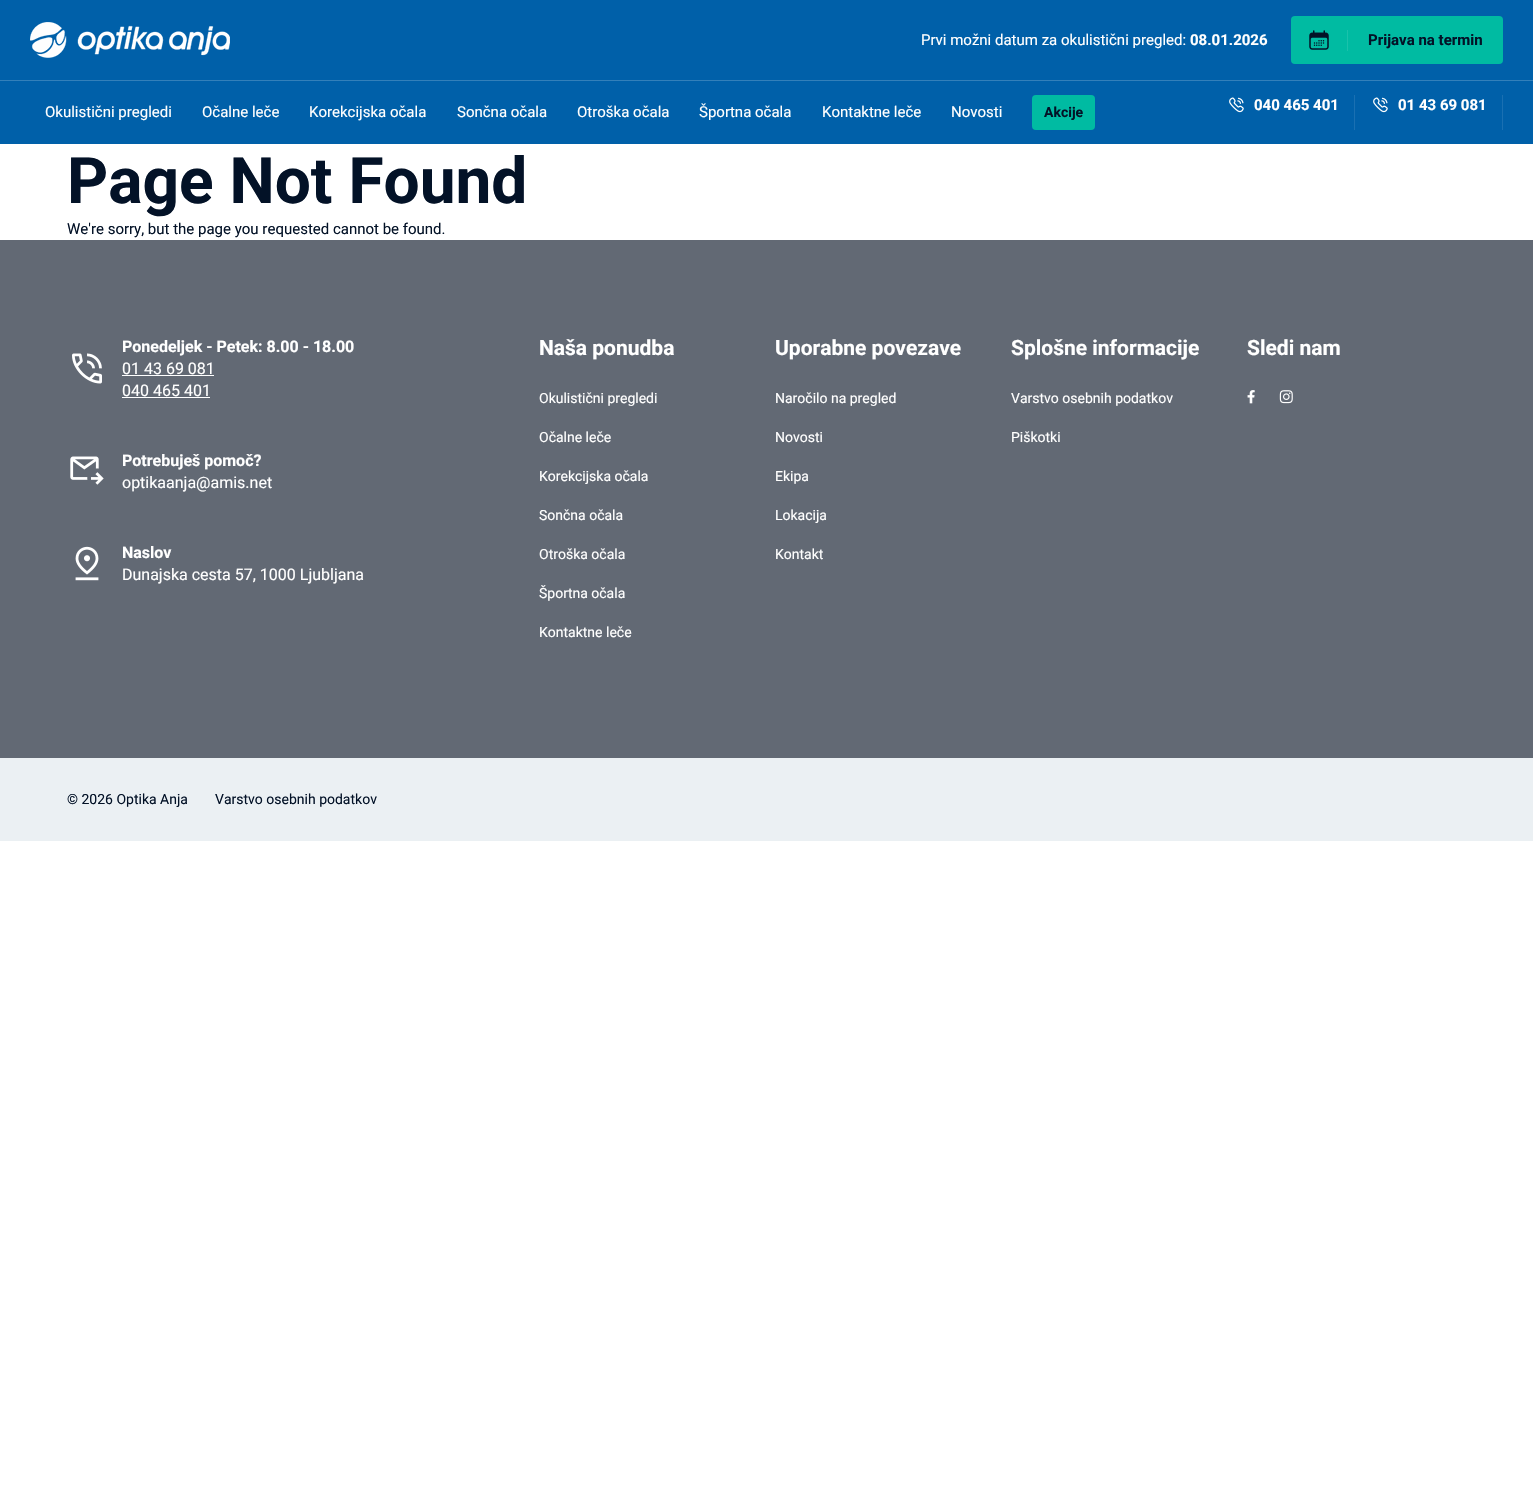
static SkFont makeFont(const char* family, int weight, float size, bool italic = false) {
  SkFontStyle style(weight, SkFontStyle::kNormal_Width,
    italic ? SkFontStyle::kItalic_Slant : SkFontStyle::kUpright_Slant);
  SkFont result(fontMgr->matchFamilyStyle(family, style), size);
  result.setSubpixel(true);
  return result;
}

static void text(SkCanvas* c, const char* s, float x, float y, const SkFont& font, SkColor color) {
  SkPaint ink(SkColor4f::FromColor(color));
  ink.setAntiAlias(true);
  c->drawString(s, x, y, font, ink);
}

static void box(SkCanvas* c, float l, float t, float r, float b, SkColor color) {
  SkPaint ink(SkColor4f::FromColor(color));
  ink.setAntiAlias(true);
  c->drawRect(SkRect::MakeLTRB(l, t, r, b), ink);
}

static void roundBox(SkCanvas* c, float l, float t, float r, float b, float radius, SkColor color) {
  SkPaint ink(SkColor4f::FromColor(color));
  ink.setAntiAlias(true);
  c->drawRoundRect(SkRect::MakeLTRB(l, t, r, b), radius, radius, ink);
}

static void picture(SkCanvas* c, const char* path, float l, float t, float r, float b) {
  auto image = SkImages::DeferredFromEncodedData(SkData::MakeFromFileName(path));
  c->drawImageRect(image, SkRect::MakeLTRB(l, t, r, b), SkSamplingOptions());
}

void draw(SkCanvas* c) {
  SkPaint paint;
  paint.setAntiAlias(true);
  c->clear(0xffffffff);
  box(c, 0, 0, 1533, 144, 0xff0060a9);
  box(c, 0, 80, 1533, 81, 0xff3380ba);
  picture(c, "img_01.png", 30, 22, 230, 58);
  SkFont face1 = makeFont("Roboto", 400, 15);
  text(c, "Prvi možni datum za okulistični pregled:", 921, 45, face1, 0xffffffff);
  SkFont face2 = makeFont("Roboto", 700, 15);
  text(c, "08.01.2026", 1190, 45, face2, 0xffffffff);
  roundBox(c, 1291, 16, 1503, 64, 4, 0xff00bba2);
  picture(c, "img_02.png", 1309, 30, 1329, 50);
  box(c, 1347, 30, 1348, 51, 0xff1ac2ab);
  text(c, "Prijava na termin", 1368, 45, face2, 0xff031227);
  text(c, "Okulistični pregledi", 45, 117, face1, 0xffffffff);
  text(c, "Očalne leče", 202, 117, face1, 0xffffffff);
  text(c, "Korekcijska očala", 309, 117, face1, 0xffffffff);
  text(c, "Sončna očala", 457, 117, face1, 0xffffffff);
  text(c, "Otroška očala", 577, 117, face1, 0xffffffff);
  text(c, "Športna očala", 699, 117, face1, 0xffffffff);
  text(c, "Kontaktne leče", 822, 117, face1, 0xffffffff);
  text(c, "Novosti", 951, 117, face1, 0xffffffff);
  roundBox(c, 1032, 95, 1095, 130, 4, 0xff00bba2);
  SkFont face3 = makeFont("Roboto", 700, 14);
  text(c, "Akcije", 1044, 117, face3, 0xff031227);
  box(c, 1354, 95, 1355, 130, 0xff1a70b2);
  picture(c, "img_03.png", 1229, 97, 1244, 113);
  text(c, "040 465 401", 1254, 110, face2, 0xffffffff);
  box(c, 1502, 95, 1503, 130, 0xff1a70b2);
  picture(c, "img_03.png", 1373, 97, 1388, 113);
  text(c, "01 43 69 081", 1398, 110, face2, 0xffffffff);
  SkFont face4 = makeFont("Roboto", 700, 64);
  text(c, "Page Not Found", 67, 203, face4, 0xff031227);
  text(c, "We're sorry, but the page you requested cannot be found.", 67, 234, face1, 0xff031227);
  box(c, 0, 240, 1533, 758, 0xff626974);
  picture(c, "img_04.png", 72, 353, 102, 384);
  SkFont face5 = makeFont("Roboto", 700, 16);
  text(c, "Ponedeljek - Petek: 8.00 - 18.00", 122, 352, face5, 0xffffffff);
  SkFont face6 = makeFont("Roboto", 400, 16);
  text(c, "01 43 69 081", 122, 374, face6, 0xffffffff);
  box(c, 122, 375, 214, 376, 0xffffffff);
  text(c, "040 465 401", 122, 396, face6, 0xffffffff);
  box(c, 122, 397, 210, 398, 0xffffffff);
  picture(c, "img_05.png", 70, 456, 104, 485);
  text(c, "Potrebuješ pomoč?", 122, 466, face5, 0xffffffff);
  text(c, "optikaanja@amis.net", 122, 488, face6, 0xffffffff);
  picture(c, "img_06.png", 75, 546, 99, 581);
  text(c, "Naslov", 122, 558, face5, 0xffffffff);
  text(c, "Dunajska cesta 57, 1000 Ljubljana", 122, 580, face6, 0xffffffff);
  SkFont face7 = makeFont("Roboto", 700, 21);
  text(c, "Naša ponudba", 539, 355, face7, 0xffffffff);
  SkFont face8 = makeFont("Roboto", 400, 14);
  text(c, "Okulistični pregledi", 539, 403, face8, 0xffffffff);
  text(c, "Očalne leče", 539, 442, face8, 0xffffffff);
  text(c, "Korekcijska očala", 539, 481, face8, 0xffffffff);
  text(c, "Sončna očala", 539, 520, face8, 0xffffffff);
  text(c, "Otroška očala", 539, 559, face8, 0xffffffff);
  text(c, "Športna očala", 539, 598, face8, 0xffffffff);
  text(c, "Kontaktne leče", 539, 637, face8, 0xffffffff);
  text(c, "Uporabne povezave", 775, 355, face7, 0xffffffff);
  text(c, "Naročilo na pregled", 775, 403, face8, 0xffffffff);
  text(c, "Novosti", 775, 442, face8, 0xffffffff);
  text(c, "Ekipa", 775, 481, face8, 0xffffffff);
  text(c, "Lokacija", 775, 520, face8, 0xffffffff);
  text(c, "Kontakt", 775, 559, face8, 0xffffffff);
  text(c, "Splošne informacije", 1011, 355, face7, 0xffffffff);
  text(c, "Varstvo osebnih podatkov", 1011, 403, face8, 0xffffffff);
  text(c, "Piškotki", 1011, 442, face8, 0xffffffff);
  text(c, "Sledi nam", 1247, 355, face7, 0xffffffff);
  picture(c, "img_07.png", 1247, 390, 1255, 404);
  picture(c, "img_08.png", 1279, 390, 1293, 404);
  box(c, 0, 758, 1533, 841, 0xffebf0f3);
  text(c, "© 2026 Optika Anja", 67, 804, face8, 0xff031227);
  text(c, "Varstvo osebnih podatkov", 215, 804, face8, 0xff031227);
}
